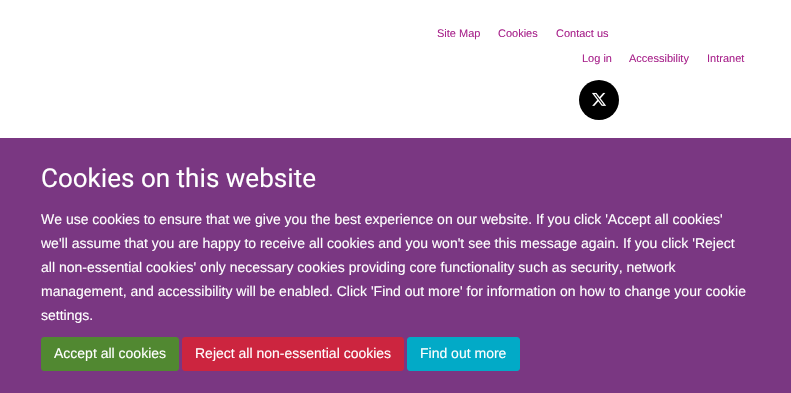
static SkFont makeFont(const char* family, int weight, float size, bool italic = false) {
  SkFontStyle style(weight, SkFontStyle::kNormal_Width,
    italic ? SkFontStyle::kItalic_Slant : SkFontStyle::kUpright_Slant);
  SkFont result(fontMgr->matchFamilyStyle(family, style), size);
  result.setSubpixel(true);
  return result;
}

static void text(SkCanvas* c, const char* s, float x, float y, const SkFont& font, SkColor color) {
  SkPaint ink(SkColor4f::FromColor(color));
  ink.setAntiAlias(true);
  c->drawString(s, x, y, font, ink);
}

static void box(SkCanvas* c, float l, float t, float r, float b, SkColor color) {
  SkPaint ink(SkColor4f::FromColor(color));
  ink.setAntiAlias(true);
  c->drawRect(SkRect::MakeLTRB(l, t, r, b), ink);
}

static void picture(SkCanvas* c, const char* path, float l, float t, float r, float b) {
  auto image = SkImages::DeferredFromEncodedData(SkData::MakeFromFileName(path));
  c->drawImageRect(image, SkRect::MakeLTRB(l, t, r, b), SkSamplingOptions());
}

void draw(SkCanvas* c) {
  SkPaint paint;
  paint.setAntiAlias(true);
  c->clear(0xffffffff);
  SkFont face1 = makeFont("Liberation Sans", 400, 11);
  text(c, "Site Map", 437, 37, face1, 0xffa8228b);
  text(c, "Cookies", 498, 37, face1, 0xffa8228b);
  text(c, "Contact us", 556, 37, face1, 0xffa8228b);
  text(c, "Log in", 582, 62, face1, 0xffa8228b);
  text(c, "Accessibility", 629, 62, face1, 0xffa8228b);
  text(c, "Intranet", 707, 62, face1, 0xffa8228b);
  paint.setColor(0xff000000);
  c->drawCircle(599, 100, 20, paint);
  picture(c, "img_01.png", 592, 92, 607, 106);
  box(c, 0, 138, 791, 393, 0xff7a3782);
  SkFont face2 = makeFont("Heebo", 400, 26);
  text(c, "Cookies on this website", 41, 187, face2, 0xffffffff);
  SkFont face3 = makeFont("Liberation Sans", 400, 14);
  text(c, "We use cookies to ensure that we give you the best experience on our website. If you click 'Accept all cookies'", 41, 224, face3, 0xffffffff);
  text(c, "we'll assume that you are happy to receive all cookies and you won't see this message again. If you click 'Reject", 41, 248, face3, 0xffffffff);
  text(c, "all non-essential cookies' only necessary cookies providing core functionality such as security, network", 41, 272, face3, 0xffffffff);
  text(c, "management, and accessibility will be enabled. Click 'Find out more' for information on how to change your cookie", 41, 296, face3, 0xffffffff);
  text(c, "settings.", 41, 320, face3, 0xffffffff);
  paint.setColor(0xff518831);
  c->drawRoundRect(SkRect::MakeLTRB(41.5f, 337.5f, 178.5f, 370.5f), 2.5f, 2.5f, paint);
  paint.setStyle(SkPaint::kStroke_Style);
  paint.setStrokeWidth(1);
  c->drawRoundRect(SkRect::MakeLTRB(41.5f, 337.5f, 178.5f, 370.5f), 2.5f, 2.5f, paint);
  text(c, "Accept all cookies", 54, 358, face3, 0xffffffff);
  paint.setStyle(SkPaint::kFill_Style);
  paint.setColor(0xffcc253f);
  c->drawRoundRect(SkRect::MakeLTRB(182.5f, 337.5f, 403.5f, 370.5f), 2.5f, 2.5f, paint);
  paint.setStyle(SkPaint::kStroke_Style);
  c->drawRoundRect(SkRect::MakeLTRB(182.5f, 337.5f, 403.5f, 370.5f), 2.5f, 2.5f, paint);
  text(c, "Reject all non-essential cookies", 195, 358, face3, 0xffffffff);
  paint.setStyle(SkPaint::kFill_Style);
  paint.setColor(0xff02aac7);
  c->drawRoundRect(SkRect::MakeLTRB(407.5f, 337.5f, 519.5f, 370.5f), 2.5f, 2.5f, paint);
  paint.setStyle(SkPaint::kStroke_Style);
  c->drawRoundRect(SkRect::MakeLTRB(407.5f, 337.5f, 519.5f, 370.5f), 2.5f, 2.5f, paint);
  text(c, "Find out more", 420, 358, face3, 0xffffffff);
}
